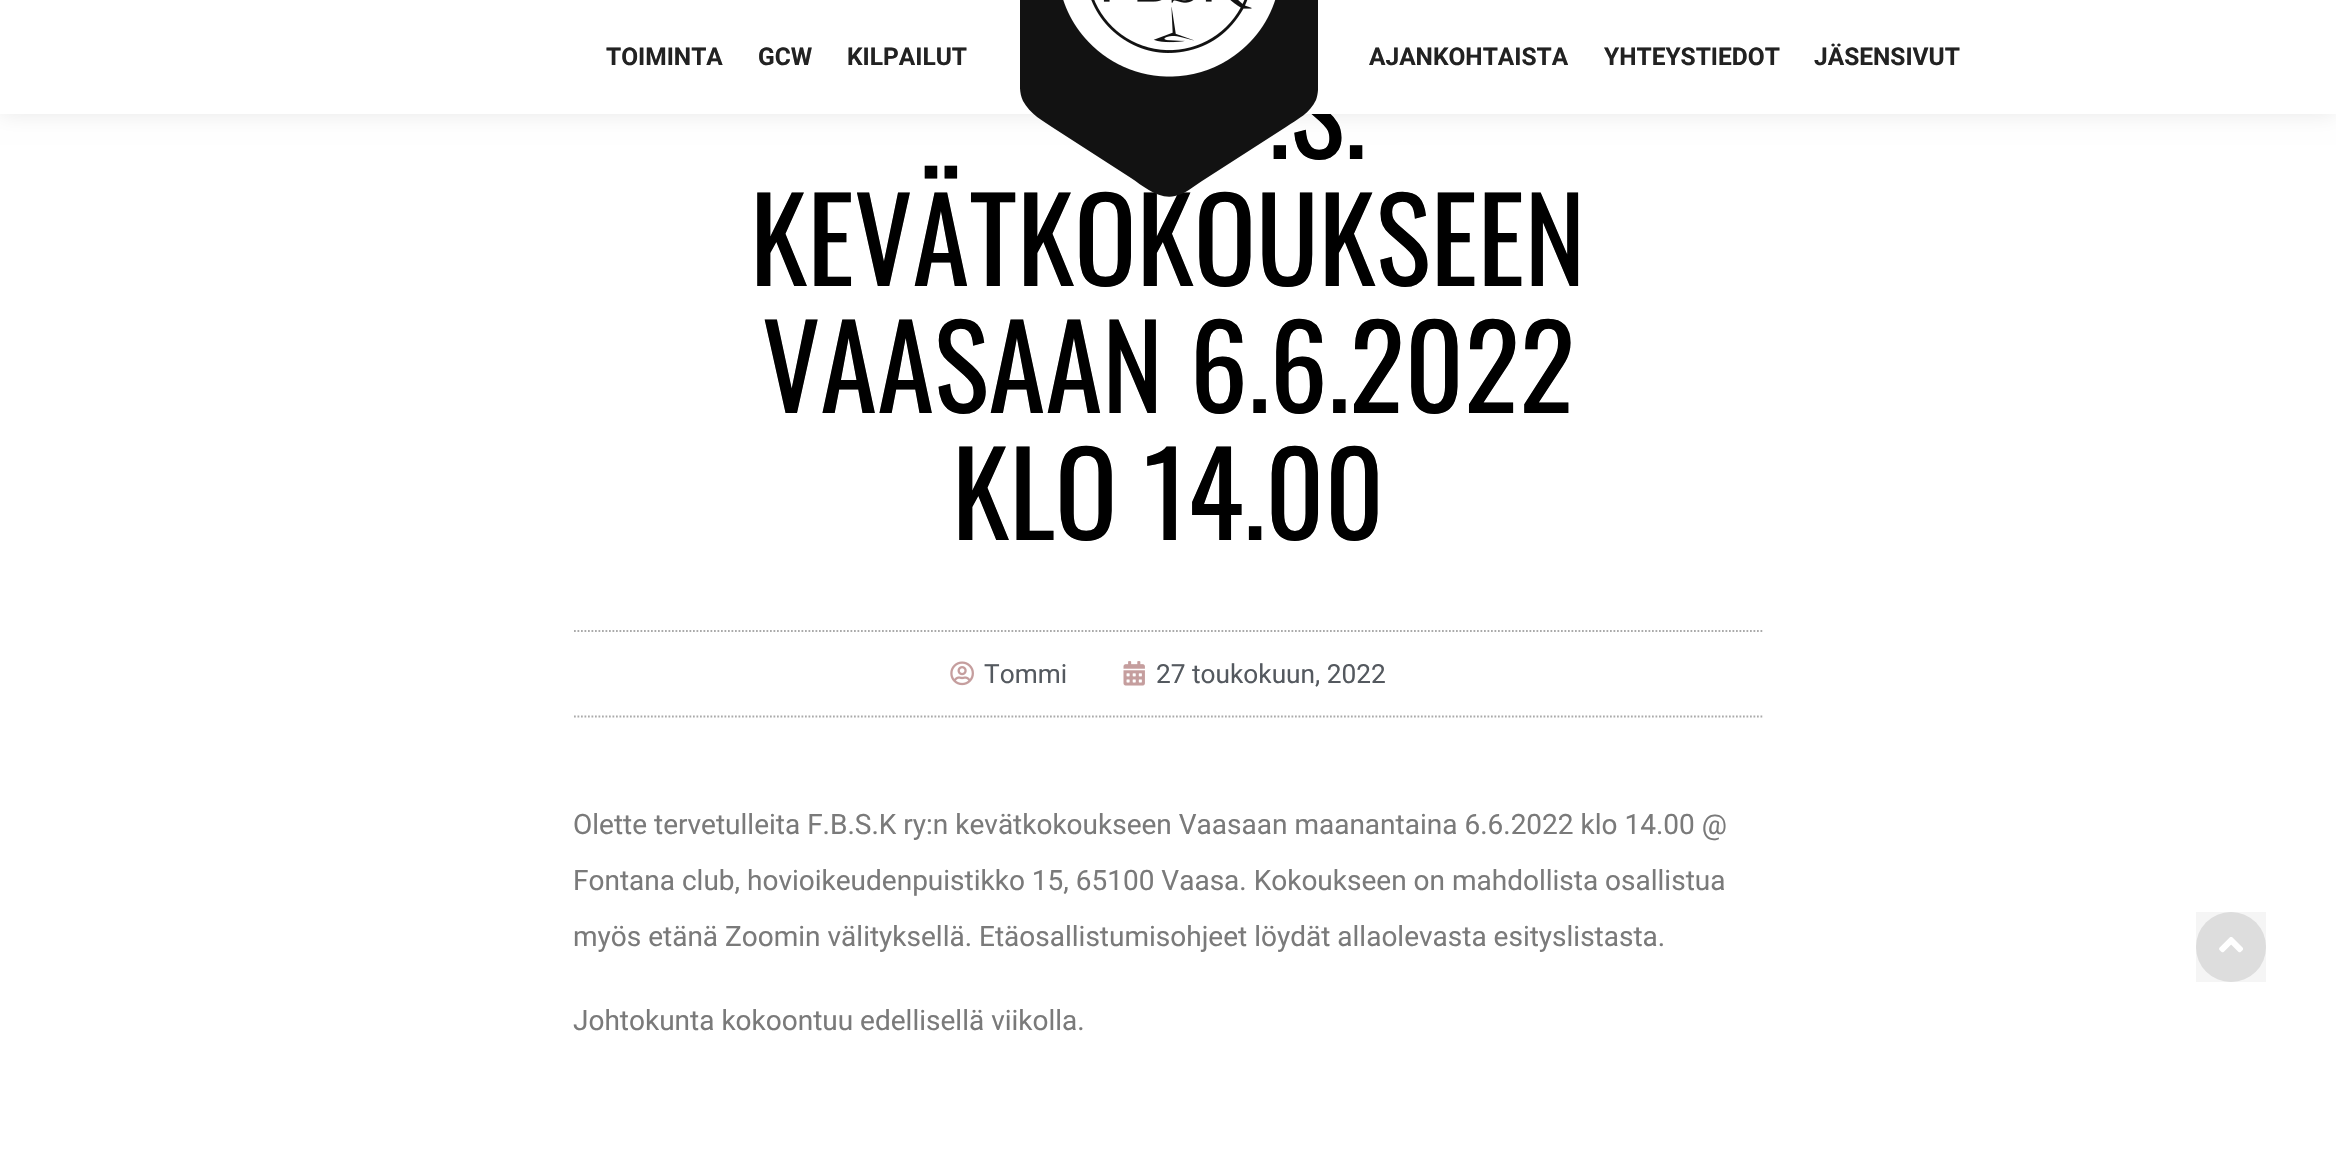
static SkFont makeFont(const char* family, int weight, float size, bool italic = false) {
  SkFontStyle style(weight, SkFontStyle::kNormal_Width,
    italic ? SkFontStyle::kItalic_Slant : SkFontStyle::kUpright_Slant);
  SkFont result(fontMgr->matchFamilyStyle(family, style), size);
  result.setSubpixel(true);
  return result;
}

static void text(SkCanvas* c, const char* s, float x, float y, const SkFont& font, SkColor color) {
  SkPaint ink(SkColor4f::FromColor(color));
  ink.setAntiAlias(true);
  c->drawString(s, x, y, font, ink);
}

static void box(SkCanvas* c, float l, float t, float r, float b, SkColor color) {
  SkPaint ink(SkColor4f::FromColor(color));
  ink.setAntiAlias(true);
  c->drawRect(SkRect::MakeLTRB(l, t, r, b), ink);
}

static void picture(SkCanvas* c, const char* path, float l, float t, float r, float b) {
  auto image = SkImages::DeferredFromEncodedData(SkData::MakeFromFileName(path));
  c->drawImageRect(image, SkRect::MakeLTRB(l, t, r, b), SkSamplingOptions());
}

void draw(SkCanvas* c) {
  SkPaint paint;
  paint.setAntiAlias(true);
  c->clear(0xffffffff);
  paint.setColor(0x17000000);
  paint.setMaskFilter(SkMaskFilter::MakeBlur(kNormal_SkBlurStyle, 10.5f));
  c->drawRect(SkRect::MakeLTRB(0, 0, 2336, 114), paint);
  paint.setMaskFilter(nullptr);
  SkFont face1 = makeFont("Oswald", 400, 115.5f);
  text(c, ".S.", 1268, 159, face1, 0xff000000);
  box(c, 0, 0, 2336, 114, 0xffffffff);
  text(c, "KEVÄTKOKOUKSEEN", 750, 286, face1, 0xff000000);
  c->save();
  c->clipRect(SkRect::MakeLTRB(1020, 0, 1318, 200));
  paint.setColor(0xff121212);
  c->drawPath(SkPathBuilder().moveTo(1020, -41).lineTo(1020, 75).cubicTo(1020, 84, 1019, 93, 1023, 101).cubicTo(1030, 114, 1043, 121, 1055, 129).lineTo(1131, 178).cubicTo(1143, 186, 1159, 200, 1175, 196).cubicTo(1185, 194, 1193, 187, 1202, 181).lineTo(1286, 127).cubicTo(1298, 119, 1310, 113, 1316, 100).cubicTo(1319, 92, 1318, 83, 1318, 76).lineTo(1318, -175).lineTo(1020, -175).close().detach(), paint);
  c->restore();
  picture(c, "img_01.png", 1063, 0, 1276, 77);
  SkFont face2 = makeFont("Roboto", 700, 24.5f);
  text(c, "TOIMINTA", 606, 65, face2, 0xff222222);
  text(c, "GCW", 758, 65, face2, 0xff222222);
  text(c, "KILPAILUT", 847, 65, face2, 0xff222222);
  text(c, "AJANKOHTAISTA", 1369, 65, face2, 0xff222222);
  text(c, "YHTEYSTIEDOT", 1604, 65, face2, 0xff222222);
  text(c, "JÄSENSIVUT", 1814, 65, face2, 0xff222222);
  text(c, "VAASAAN 6.6.2022", 762, 413, face1, 0xff000000);
  text(c, "KLO 14.00", 952, 540, face1, 0xff000000);
  paint.setStyle(SkPaint::kStroke_Style);
  paint.setStrokeWidth(1.8f);
  paint.setColor(0xffaaaaaa);
  paint.setPathEffect(SkDashPathEffect::Make({{1.75f, 1.75f}}, 0));
  c->drawPath(SkPathBuilder().moveTo(574, 631).lineTo(1764, 631).detach(), paint);
  paint.setPathEffect(nullptr);
  paint.setPathEffect(SkDashPathEffect::Make({{1.75f, 1.75f}}, 0));
  c->drawPath(SkPathBuilder().moveTo(574, 716.5f).lineTo(1764, 716.5f).detach(), paint);
  paint.setPathEffect(nullptr);
  picture(c, "img_02.png", 950, 661, 974, 686);
  SkFont face3 = makeFont("Roboto", 400, 26.25f);
  text(c, "Tommi", 984, 683, face3, 0xff54595f);
  picture(c, "img_03.png", 1123, 661, 1145, 686);
  text(c, "27 toukokuun, 2022", 1156, 683, face3, 0xff54595f);
  SkFont face4 = makeFont("Roboto", 400, 28);
  text(c, "Olette tervetulleita F.B.S.K ry:n kevätkokoukseen Vaasaan maanantaina 6.6.2022 klo 14.00 @", 573, 834, face4, 0xff7a7a7a);
  text(c, "Fontana club, hovioikeudenpuistikko 15, 65100 Vaasa. Kokoukseen on mahdollista osallistua", 573, 890, face4, 0xff7a7a7a);
  text(c, "myös etänä Zoomin välityksellä. Etäosallistumisohjeet löydät allaolevasta esityslistasta.", 573, 946, face4, 0xff7a7a7a);
  text(c, "Johtokunta kokoontuu edellisellä viikolla.", 573, 1030, face4, 0xff7a7a7a);
  paint.setStyle(SkPaint::kFill_Style);
  paint.setColor(0xffe6e6e6);
  c->drawCircle(2231, 947, 35, paint);
  box(c, 2196, 912, 2266, 982, 0x0a000000);
  picture(c, "img_04.png", 2219, 937, 2243, 953);
}
